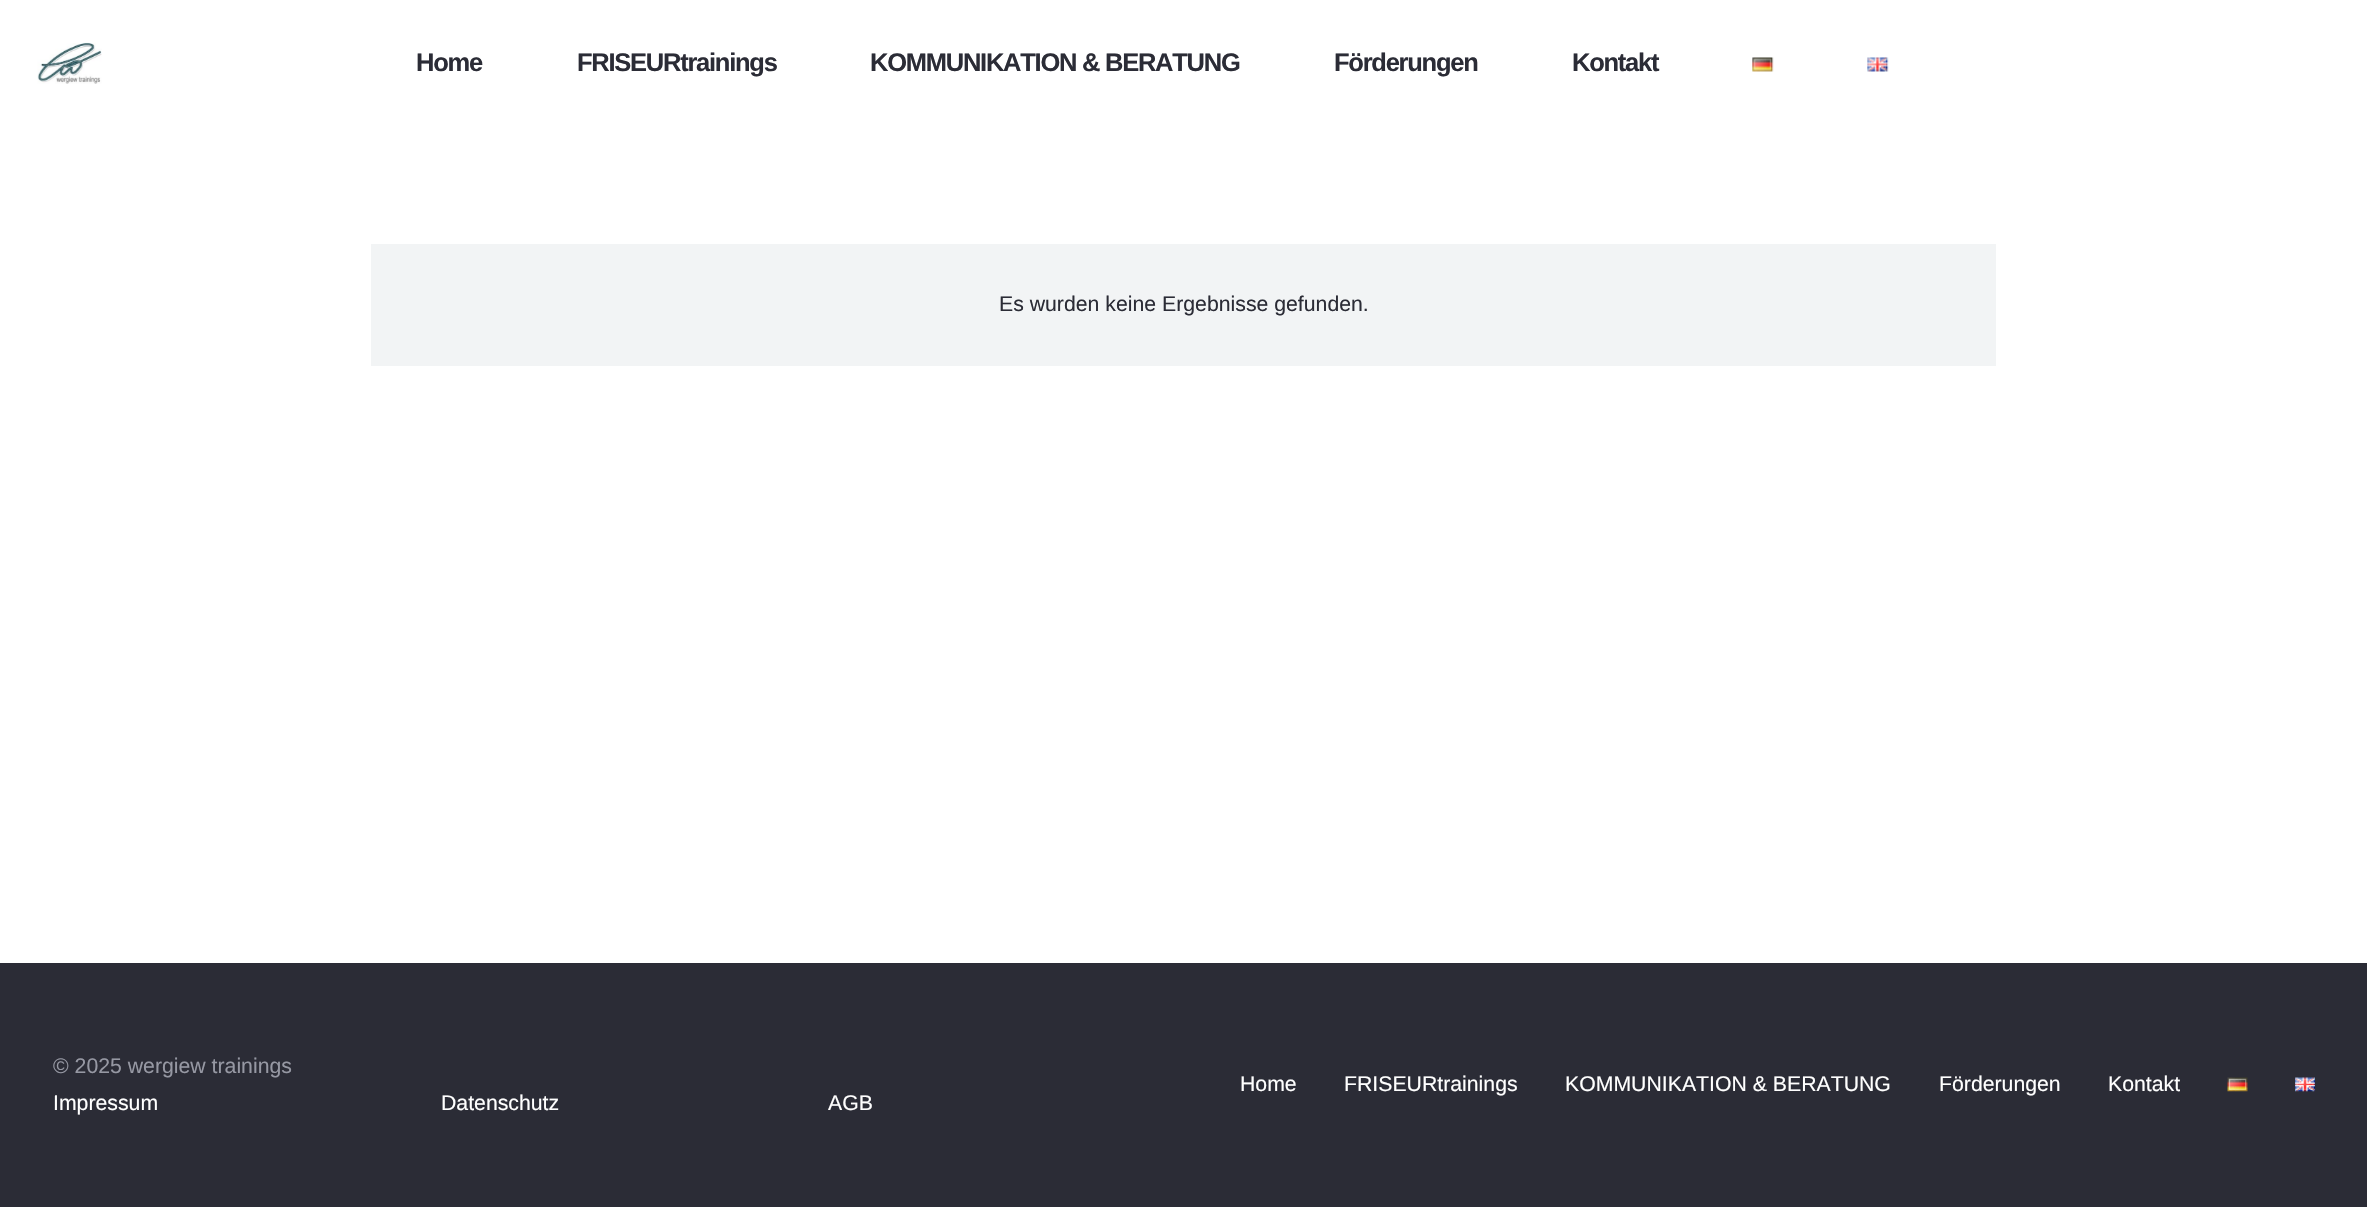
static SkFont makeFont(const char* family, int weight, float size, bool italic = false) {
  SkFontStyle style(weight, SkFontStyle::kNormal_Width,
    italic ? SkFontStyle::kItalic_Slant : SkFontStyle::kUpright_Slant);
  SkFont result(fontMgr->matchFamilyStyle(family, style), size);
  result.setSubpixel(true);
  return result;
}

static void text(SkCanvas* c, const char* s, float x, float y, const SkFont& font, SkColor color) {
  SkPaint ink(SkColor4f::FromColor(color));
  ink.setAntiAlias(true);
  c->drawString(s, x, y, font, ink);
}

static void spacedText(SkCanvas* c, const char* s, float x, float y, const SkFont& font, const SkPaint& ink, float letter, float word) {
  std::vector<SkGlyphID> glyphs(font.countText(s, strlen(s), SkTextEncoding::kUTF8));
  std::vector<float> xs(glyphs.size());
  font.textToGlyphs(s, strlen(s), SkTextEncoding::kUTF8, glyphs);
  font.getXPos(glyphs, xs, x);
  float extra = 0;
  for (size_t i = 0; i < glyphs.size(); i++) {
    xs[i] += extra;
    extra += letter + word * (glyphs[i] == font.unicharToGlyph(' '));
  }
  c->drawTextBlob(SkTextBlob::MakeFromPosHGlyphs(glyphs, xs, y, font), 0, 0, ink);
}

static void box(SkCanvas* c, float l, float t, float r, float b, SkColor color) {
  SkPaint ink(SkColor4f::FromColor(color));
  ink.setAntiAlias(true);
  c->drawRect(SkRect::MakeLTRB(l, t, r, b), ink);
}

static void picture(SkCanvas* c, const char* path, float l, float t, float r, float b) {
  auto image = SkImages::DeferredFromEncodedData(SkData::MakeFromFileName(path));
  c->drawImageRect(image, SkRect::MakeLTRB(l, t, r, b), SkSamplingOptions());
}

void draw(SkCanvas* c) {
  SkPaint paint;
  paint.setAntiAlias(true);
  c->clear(0xffffffff);
  picture(c, "img_01.png", 37, 42, 102, 84);
  SkFont face1 = makeFont("Liberation Sans", 700, 25.5f);
  paint.setColor(0xff2b2c36);
  spacedText(c, "Home", 416, 71, face1, paint, -1.25f, 0);
  spacedText(c, "FRISEURtrainings", 577, 71, face1, paint, -1.25f, 0);
  spacedText(c, "KOMMUNIKATION & BERATUNG", 870, 71, face1, paint, -1.25f, 0);
  spacedText(c, "Förderungen", 1334, 71, face1, paint, -1.25f, 0);
  spacedText(c, "Kontakt", 1572, 71, face1, paint, -1.25f, 0);
  picture(c, "img_02.png", 1752, 57, 1774, 72);
  picture(c, "img_03.png", 1867, 57, 1889, 72);
  box(c, 371, 244, 1996, 366, 0xfff2f4f5);
  SkFont face2 = makeFont("Liberation Sans", 400, 21.25f);
  text(c, "Es wurden keine Ergebnisse gefunden.", 999, 311, face2, 0xff2b2c36);
  box(c, 0, 963, 2367, 1207, 0xff2b2c36);
  text(c, "© 2025 wergiew trainings", 53, 1073, face2, 0xff9698a3);
  text(c, "Impressum", 53, 1110, face2, 0xffffffff);
  text(c, "Datenschutz", 441, 1110, face2, 0xffffffff);
  text(c, "AGB", 828, 1110, face2, 0xffffffff);
  text(c, "Home", 1240, 1091, face2, 0xffffffff);
  text(c, "FRISEURtrainings", 1344, 1091, face2, 0xffffffff);
  text(c, "KOMMUNIKATION & BERATUNG", 1565, 1091, face2, 0xffffffff);
  text(c, "Förderungen", 1939, 1091, face2, 0xffffffff);
  text(c, "Kontakt", 2108, 1091, face2, 0xffffffff);
  picture(c, "img_04.png", 2227, 1077, 2248, 1092);
  picture(c, "img_05.png", 2295, 1077, 2315, 1092);
}
